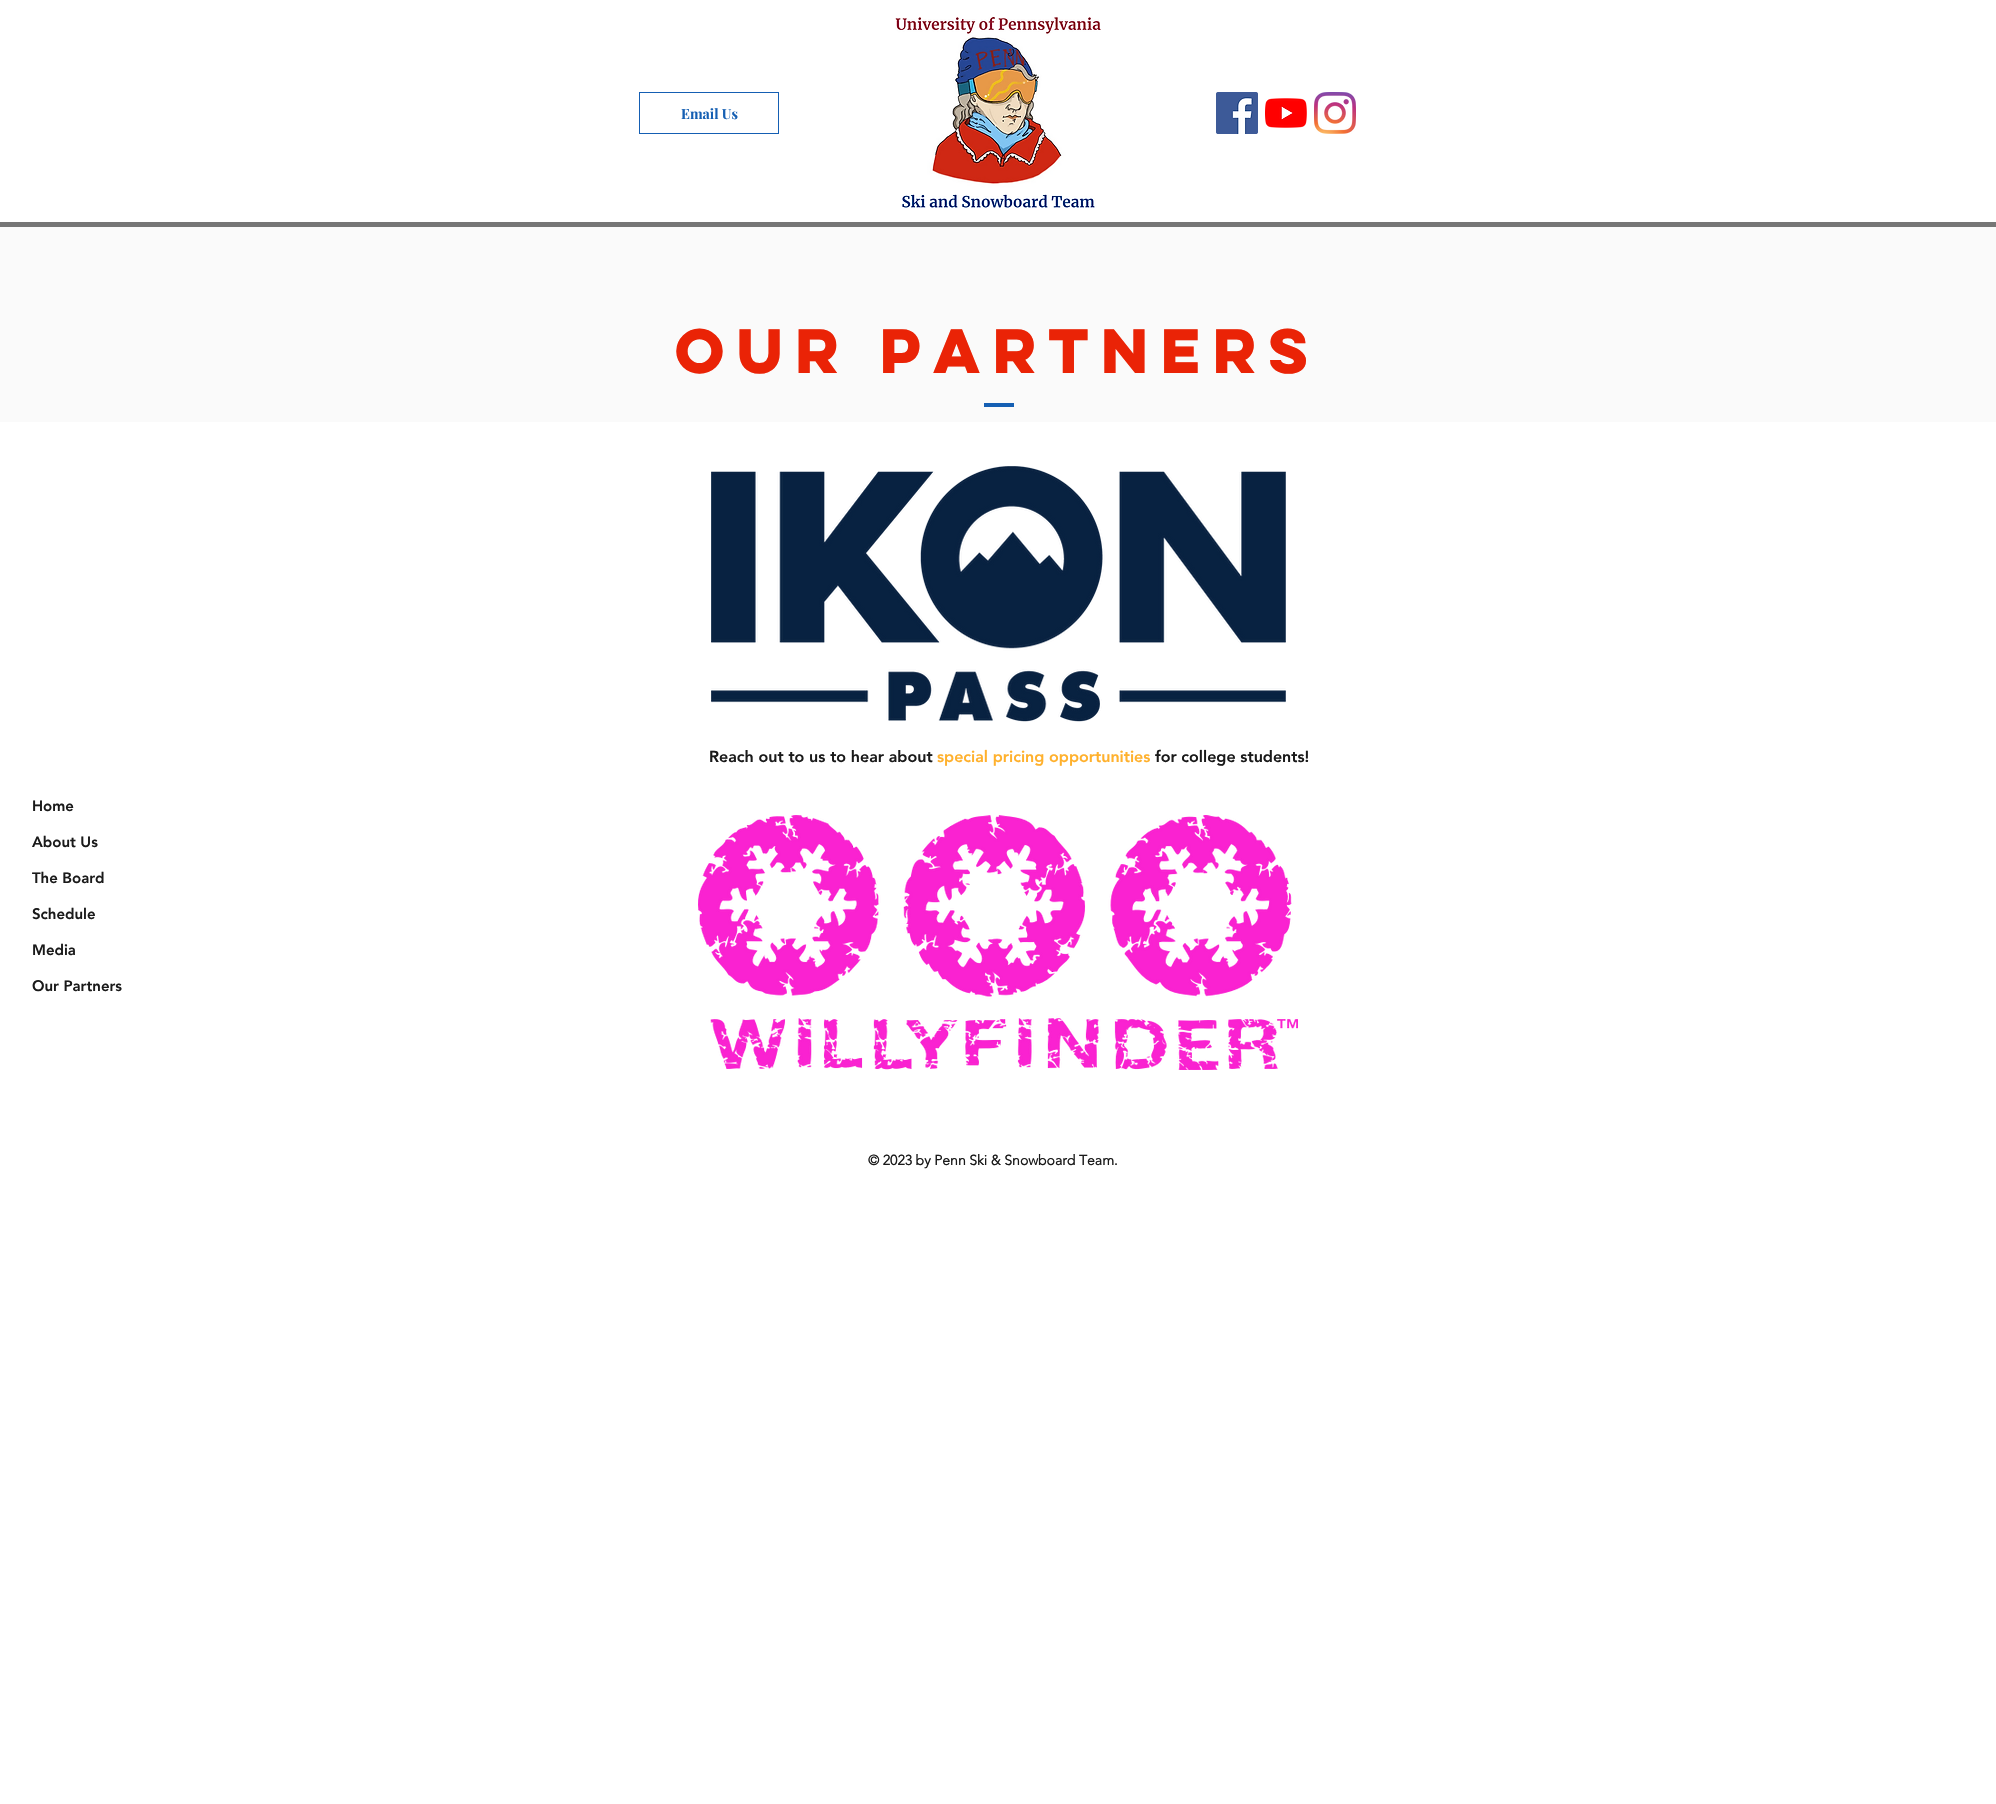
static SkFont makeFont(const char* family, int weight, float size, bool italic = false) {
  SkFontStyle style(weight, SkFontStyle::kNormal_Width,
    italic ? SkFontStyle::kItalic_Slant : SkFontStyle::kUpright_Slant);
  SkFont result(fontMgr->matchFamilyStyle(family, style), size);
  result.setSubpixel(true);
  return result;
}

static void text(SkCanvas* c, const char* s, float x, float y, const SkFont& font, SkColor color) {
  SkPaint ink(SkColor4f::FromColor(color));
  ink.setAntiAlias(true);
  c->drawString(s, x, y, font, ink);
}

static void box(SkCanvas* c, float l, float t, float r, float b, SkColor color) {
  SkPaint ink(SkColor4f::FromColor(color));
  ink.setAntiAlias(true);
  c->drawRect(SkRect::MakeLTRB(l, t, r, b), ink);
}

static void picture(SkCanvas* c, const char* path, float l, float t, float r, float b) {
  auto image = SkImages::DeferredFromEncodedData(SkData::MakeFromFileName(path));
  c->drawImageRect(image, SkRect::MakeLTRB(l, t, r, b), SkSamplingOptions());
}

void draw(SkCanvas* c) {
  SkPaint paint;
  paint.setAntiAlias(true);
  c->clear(0xffffffff);
  paint.setStyle(SkPaint::kStroke_Style);
  paint.setStrokeWidth(1);
  paint.setColor(0xff155fb3);
  c->drawRect(SkRect::MakeLTRB(639.5f, 92.5f, 778.5f, 133.5f), paint);
  SkFont face1 = makeFont("Playfair Display", 700, 14);
  text(c, "Email Us", 681, 119, face1, 0xff155fb3);
  picture(c, "img_01.png", 895, 17, 1101, 208);
  picture(c, "img_02.png", 1216, 92, 1258, 134);
  picture(c, "img_03.png", 1265, 98, 1307, 128);
  picture(c, "img_04.png", 1314, 92, 1356, 134);
  box(c, 0, 222, 1996, 227, 0xff767676);
  box(c, 0, 227, 1996, 422, 0xfffafafa);
  SkFont face2 = makeFont("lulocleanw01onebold", 700, 56);
  text(c, "Our Partners", 675, 373, face2, 0xffea2306);
  box(c, 984, 403, 1014, 407, 0xff155fb3);
  SkFont face3 = makeFont("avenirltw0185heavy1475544", 900, 16);
  text(c, "Reach out to us to hear about", 709, 762, face3, 0xff1a1a1a);
  text(c, "special pricing opportunities", 937, 762, face3, 0xffffb12d);
  text(c, "for college students!", 1155, 762, face3, 0xff1a1a1a);
  picture(c, "img_05.png", 711, 466, 1286, 722);
  picture(c, "img_06.png", 698, 815, 1298, 1070);
  SkFont face4 = makeFont("avenirltw0185heavy1475544", 900, 15);
  text(c, "Home", 32, 811, face4, 0xff1a1a1a);
  text(c, "About Us", 32, 847, face4, 0xff1a1a1a);
  text(c, "The Board", 32, 883, face4, 0xff1a1a1a);
  text(c, "Schedule", 32, 919, face4, 0xff1a1a1a);
  text(c, "Media", 32, 955, face4, 0xff1a1a1a);
  text(c, "Our Partners", 32, 991, face4, 0xff1a1a1a);
  SkFont face5 = makeFont("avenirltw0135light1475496", 700, 14);
  text(c, "© 2023 by Penn Ski & Snowboard Team.", 868, 1165, face5, 0xff1a1a1a);
}
